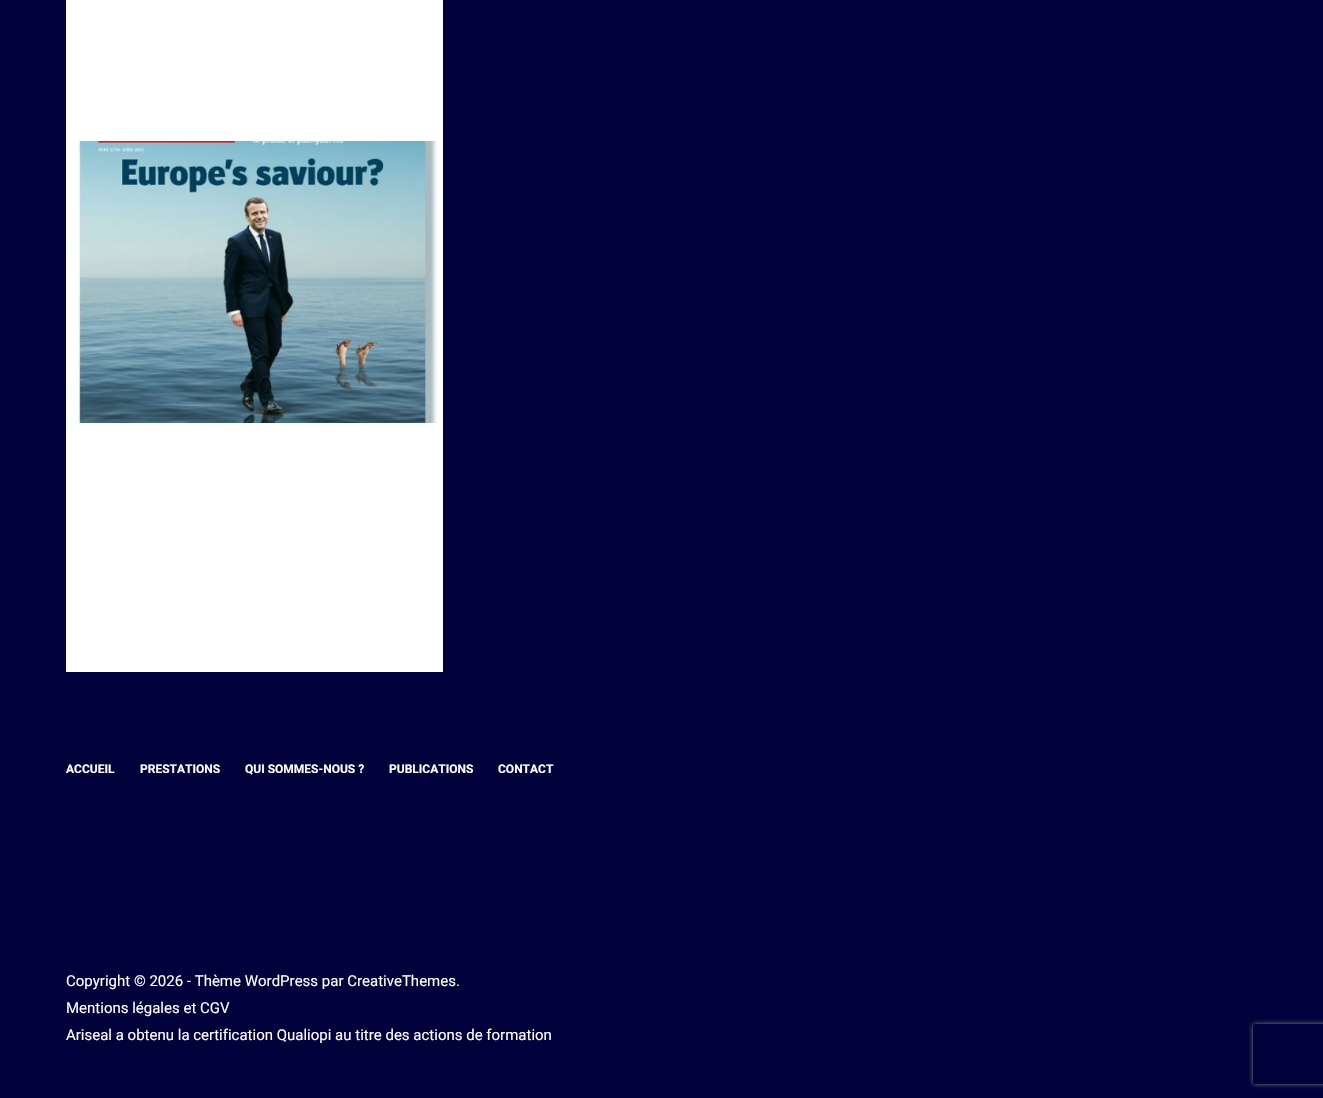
static SkFont makeFont(const char* family, int weight, float size, bool italic = false) {
  SkFontStyle style(weight, SkFontStyle::kNormal_Width,
    italic ? SkFontStyle::kItalic_Slant : SkFontStyle::kUpright_Slant);
  SkFont result(fontMgr->matchFamilyStyle(family, style), size);
  result.setSubpixel(true);
  return result;
}

static void text(SkCanvas* c, const char* s, float x, float y, const SkFont& font, SkColor color) {
  SkPaint ink(SkColor4f::FromColor(color));
  ink.setAntiAlias(true);
  c->drawString(s, x, y, font, ink);
}

static void box(SkCanvas* c, float l, float t, float r, float b, SkColor color) {
  SkPaint ink(SkColor4f::FromColor(color));
  ink.setAntiAlias(true);
  c->drawRect(SkRect::MakeLTRB(l, t, r, b), ink);
}

static void picture(SkCanvas* c, const char* path, float l, float t, float r, float b) {
  auto image = SkImages::DeferredFromEncodedData(SkData::MakeFromFileName(path));
  c->drawImageRect(image, SkRect::MakeLTRB(l, t, r, b), SkSamplingOptions());
}

void draw(SkCanvas* c) {
  SkPaint paint;
  paint.setAntiAlias(true);
  c->clear(0xff00003a);
  box(c, 66, 0, 443, 672, 0xffffffff);
  picture(c, "img_01.png", 78, 141, 437, 423);
  SkFont face1 = makeFont("Roboto", 700, 12);
  text(c, "ACCUEIL", 66, 773, face1, 0xffffffff);
  text(c, "PRESTATIONS", 140, 773, face1, 0xffffffff);
  text(c, "QUI SOMMES-NOUS ?", 245, 773, face1, 0xffffffff);
  text(c, "PUBLICATIONS", 389, 773, face1, 0xffffffff);
  text(c, "CONTACT", 498, 773, face1, 0xffffffff);
  SkFont face2 = makeFont("Roboto", 400, 15);
  text(c, "Copyright © 2026 - Thème WordPress par CreativeThemes.", 66, 986, face2, 0xffffffff);
  text(c, "Mentions légales et CGV", 66, 1013, face2, 0xffffffff);
  text(c, "Ariseal a obtenu la certification Qualiopi au titre des actions de formation", 66, 1040, face2, 0xffffffff);
  c->save();
  c->clipPath(SkPathBuilder(SkPathFillType::kEvenOdd).moveTo(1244, 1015).lineTo(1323, 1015).lineTo(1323, 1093).lineTo(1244, 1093).close().moveTo(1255, 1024).lineTo(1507, 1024).cubicTo(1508, 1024, 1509, 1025, 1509, 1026).lineTo(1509, 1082).cubicTo(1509, 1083, 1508, 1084, 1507, 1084).lineTo(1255, 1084).cubicTo(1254, 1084, 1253, 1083, 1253, 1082).lineTo(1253, 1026).cubicTo(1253, 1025, 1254, 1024, 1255, 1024).close().detach(), true);
  paint.setColor(0xff808080);
  paint.setMaskFilter(SkMaskFilter::MakeBlur(kNormal_SkBlurStyle, 2.5f));
  c->drawRoundRect(SkRect::MakeLTRB(1253, 1024, 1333, 1084), 2, 2, paint);
  paint.setMaskFilter(nullptr);
  c->restore();
}
